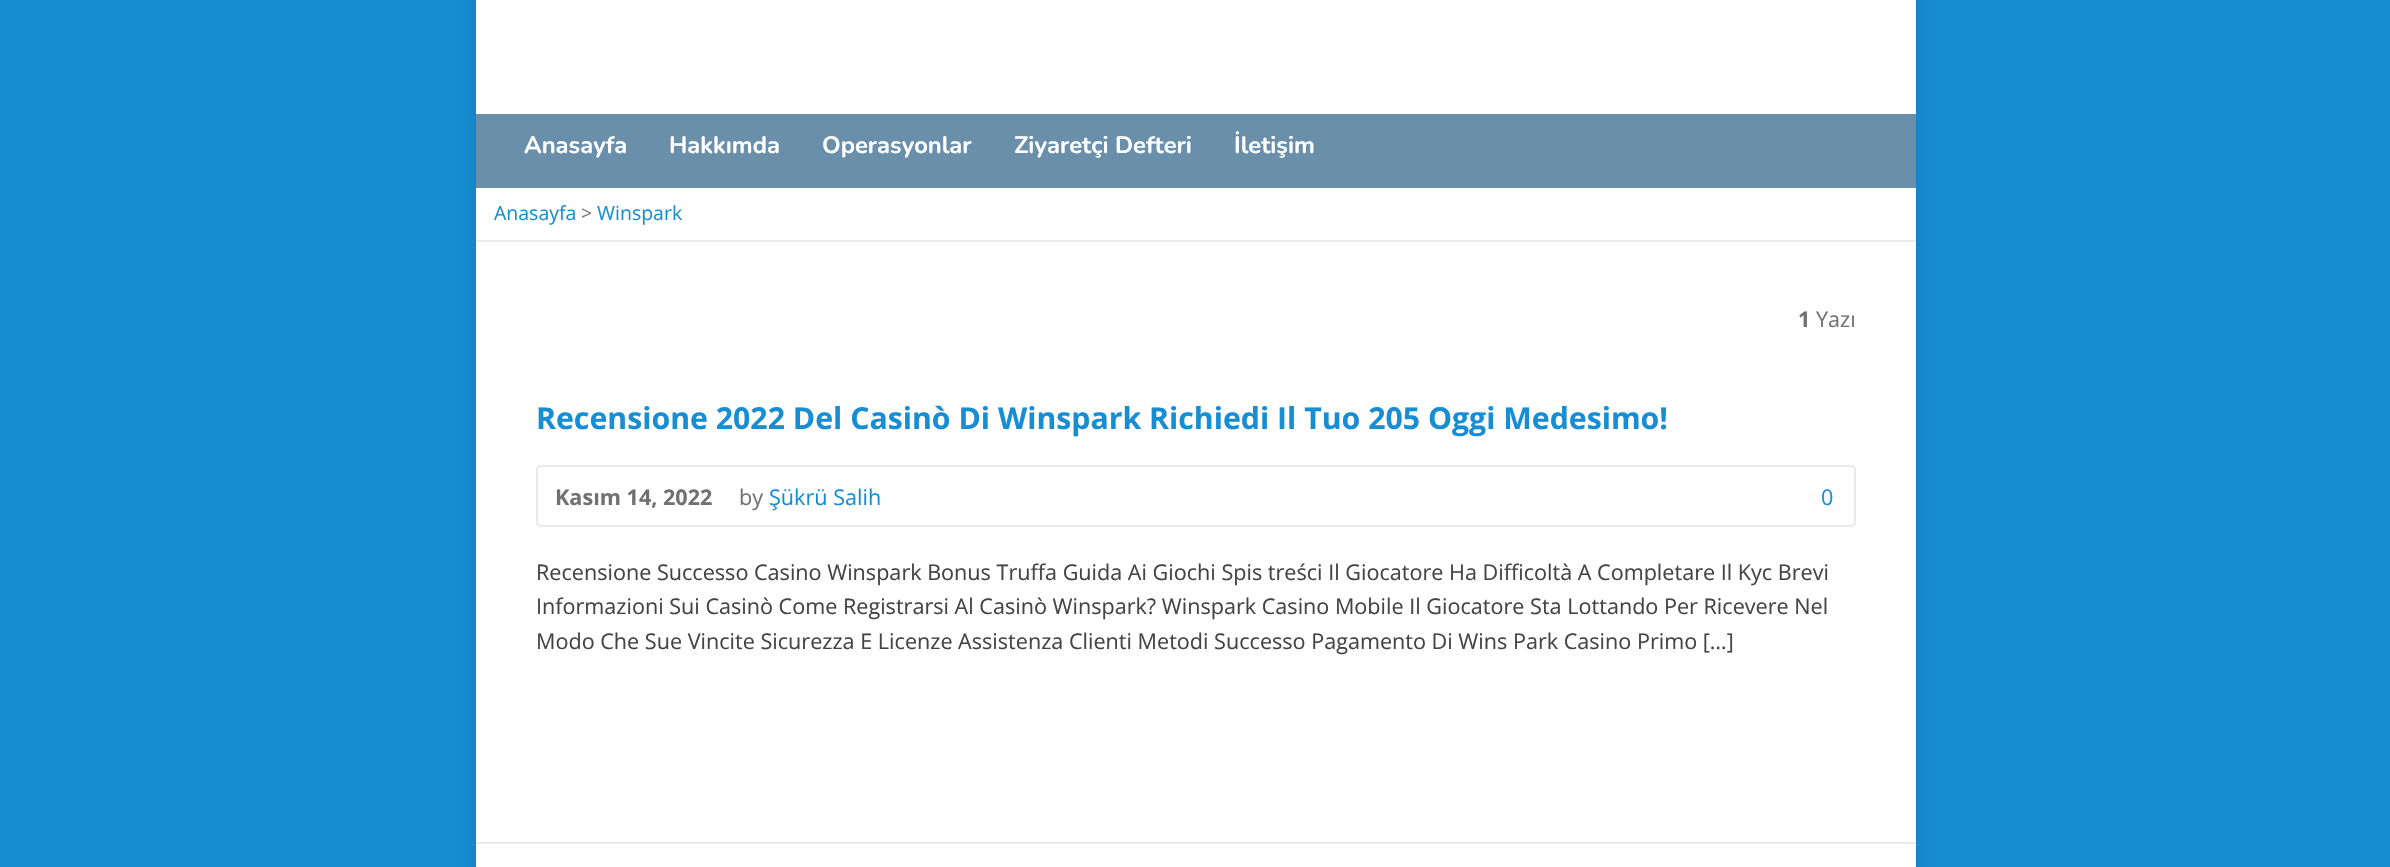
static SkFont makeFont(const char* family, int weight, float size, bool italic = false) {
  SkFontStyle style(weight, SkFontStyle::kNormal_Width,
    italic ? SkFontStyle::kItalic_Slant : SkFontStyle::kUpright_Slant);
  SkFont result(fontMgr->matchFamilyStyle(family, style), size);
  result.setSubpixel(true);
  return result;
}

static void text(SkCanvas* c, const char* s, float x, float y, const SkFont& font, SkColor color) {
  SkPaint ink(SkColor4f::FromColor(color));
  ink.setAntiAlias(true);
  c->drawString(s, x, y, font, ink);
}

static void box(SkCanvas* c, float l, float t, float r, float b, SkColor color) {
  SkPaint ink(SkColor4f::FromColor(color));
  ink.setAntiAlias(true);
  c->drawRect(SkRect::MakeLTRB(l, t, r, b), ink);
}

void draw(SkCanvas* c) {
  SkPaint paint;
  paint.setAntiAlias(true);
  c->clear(0xff178ed4);
  paint.setColor(0x1f000000);
  paint.setMaskFilter(SkMaskFilter::MakeBlur(kNormal_SkBlurStyle, 15));
  c->drawRoundRect(SkRect::MakeLTRB(476, -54, 1916, 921), 9, 9, paint);
  paint.setMaskFilter(nullptr);
  box(c, 476, 0, 1916, 867, 0xffffffff);
  box(c, 476, 114, 1916, 188, 0xff6a8fab);
  SkFont face1 = makeFont("Nunito", 700, 23.75f);
  text(c, "Anasayfa", 524, 153, face1, 0xffffffff);
  text(c, "Hakkımda", 669, 153, face1, 0xffffffff);
  text(c, "Operasyonlar", 822, 153, face1, 0xffffffff);
  text(c, "Ziyaretçi Defteri", 1014, 153, face1, 0xffffffff);
  text(c, "İletişim", 1234, 153, face1, 0xffffffff);
  box(c, 476, 240, 1916, 242, 0xffeaeaea);
  SkFont face2 = makeFont("Open Sans", 400, 19.5f);
  text(c, "Anasayfa", 494, 220, face2, 0xff178ed4);
  text(c, ">", 581, 220, face2, 0xff777777);
  text(c, "Winspark", 597, 220, face2, 0xff178ed4);
  SkFont face3 = makeFont("Open Sans", 700, 21.6f);
  text(c, "1", 1798, 327, face3, 0xff717171);
  SkFont face4 = makeFont("Open Sans", 400, 21.6f);
  text(c, "Yazı", 1816, 327, face4, 0xff717171);
  SkFont face5 = makeFont("Open Sans", 700, 30.25f);
  text(c, "Recensione 2022 Del Casinò Di Winspark Richiedi Il Tuo 205 Oggi Medesimo!", 536, 429, face5, 0xff178ed4);
  paint.setStyle(SkPaint::kStroke_Style);
  paint.setStrokeWidth(2);
  paint.setColor(0xffeaeaea);
  c->drawRoundRect(SkRect::MakeLTRB(537, 466, 1855, 526), 4, 4, paint);
  text(c, "Kasım 14, 2022", 555, 505, face3, 0xff717171);
  text(c, "by", 739, 505, face4, 0xff717171);
  text(c, "Şükrü Salih", 769, 505, face4, 0xff178ed4);
  text(c, "0", 1821, 505, face4, 0xff178ed4);
  text(c, "Recensione Successo Casino Winspark Bonus Truffa Guida Ai Giochi Spis treści Il Giocatore Ha Difficoltà A Completare Il Kyc Brevi", 536, 580, face4, 0xff444444);
  text(c, "Informazioni Sui Casinò Come Registrarsi Al Casinò Winspark? Winspark Casino Mobile Il Giocatore Sta Lottando Per Ricevere Nel", 536, 614, face4, 0xff444444);
  text(c, "Modo Che Sue Vincite Sicurezza E Licenze Assistenza Clienti Metodi Successo Pagamento Di Wins Park Casino Primo […]", 536, 649, face4, 0xff444444);
  box(c, 476, 842, 1916, 844, 0xffeaeaea);
}
